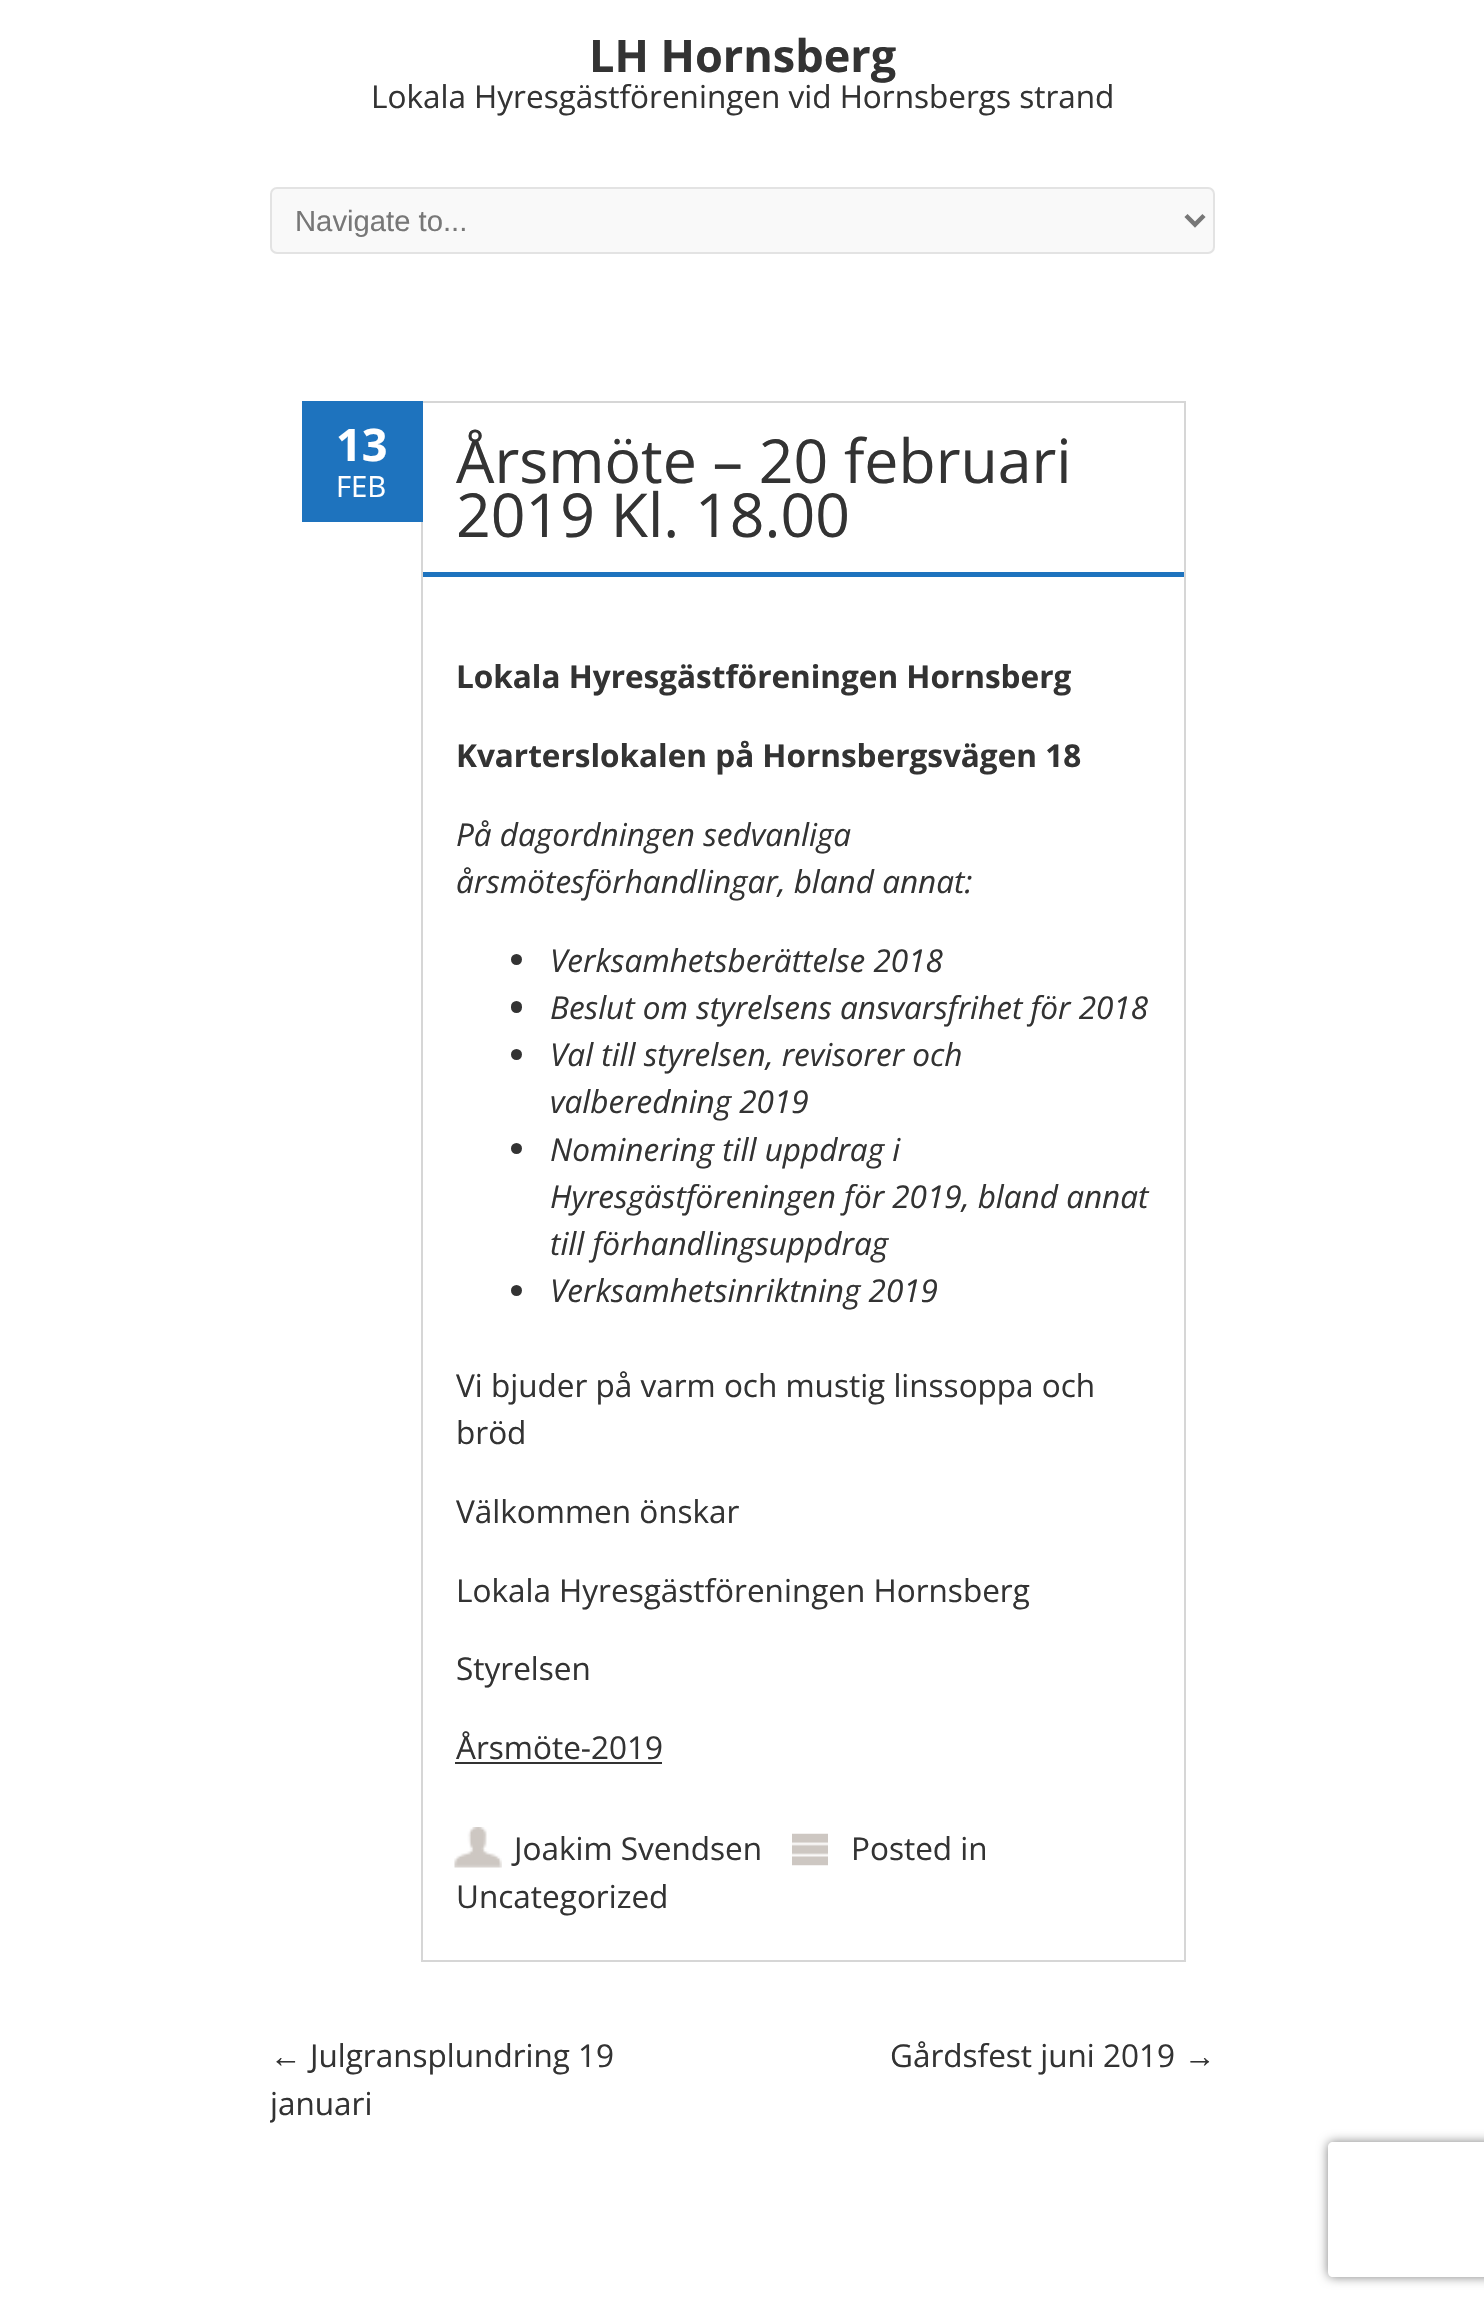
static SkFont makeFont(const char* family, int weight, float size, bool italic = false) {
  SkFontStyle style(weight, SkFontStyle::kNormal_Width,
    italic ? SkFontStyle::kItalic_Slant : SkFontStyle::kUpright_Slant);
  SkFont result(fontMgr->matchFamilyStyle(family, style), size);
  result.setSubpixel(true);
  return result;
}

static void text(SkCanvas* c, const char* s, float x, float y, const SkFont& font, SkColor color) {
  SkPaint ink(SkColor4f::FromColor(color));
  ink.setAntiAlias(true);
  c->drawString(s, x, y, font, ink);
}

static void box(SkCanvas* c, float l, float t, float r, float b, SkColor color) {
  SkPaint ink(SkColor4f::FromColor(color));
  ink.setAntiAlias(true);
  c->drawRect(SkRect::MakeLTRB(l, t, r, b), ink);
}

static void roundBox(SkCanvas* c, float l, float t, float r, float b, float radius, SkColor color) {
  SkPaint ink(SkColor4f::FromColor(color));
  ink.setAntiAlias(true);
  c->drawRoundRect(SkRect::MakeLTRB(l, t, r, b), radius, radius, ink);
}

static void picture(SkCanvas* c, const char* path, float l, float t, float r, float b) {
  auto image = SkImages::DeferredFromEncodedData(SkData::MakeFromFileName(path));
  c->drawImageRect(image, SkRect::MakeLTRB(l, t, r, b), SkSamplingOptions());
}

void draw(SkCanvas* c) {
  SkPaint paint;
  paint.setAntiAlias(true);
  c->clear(0xffffffff);
  SkFont face1 = makeFont("Open Sans", 700, 45);
  text(c, "LH Hornsberg", 589, 72, face1, 0xff333333);
  SkFont face2 = makeFont("Open Sans", 400, 31.5f);
  text(c, "Lokala Hyresgästföreningen vid Hornsbergs strand", 371, 108, face2, 0xff333333);
  paint.setColor(0xfff9f9f9);
  c->drawRoundRect(SkRect::MakeLTRB(271, 188, 1214, 253), 6, 6, paint);
  paint.setStyle(SkPaint::kStroke_Style);
  paint.setStrokeWidth(2);
  paint.setColor(0xffe3e3e3);
  c->drawRoundRect(SkRect::MakeLTRB(271, 188, 1214, 253), 6, 6, paint);
  paint.setStrokeWidth(4.5f);
  paint.setColor(0xff777777);
  c->drawPath(SkPathBuilder().moveTo(1186, 215.5f).lineTo(1195, 224.5f).lineTo(1204, 215.5f).detach(), paint);
  SkFont face3 = makeFont("Liberation Sans", 400, 29.25f);
  text(c, "Navigate to...", 295, 231, face3, 0xff777777);
  paint.setStrokeWidth(2);
  paint.setColor(0xffd6d6d6);
  c->drawRect(SkRect::MakeLTRB(422, 402, 1185, 1961), paint);
  box(c, 302, 401, 423, 522, 0xff1e73be);
  text(c, "13", 336, 461, face1, 0xffffffff);
  SkFont face4 = makeFont("Open Sans", 400, 29.25f);
  text(c, "FEB", 336, 497, face4, 0xffffffff);
  box(c, 423, 572, 1184, 577, 0xff1e73be);
  SkFont face5 = makeFont("Open Sans", 400, 60.75f);
  text(c, "Årsmöte – 20 februari", 456, 483, face5, 0xff333333);
  text(c, "2019 Kl. 18.00", 456, 537, face5, 0xff333333);
  SkFont face6 = makeFont("Open Sans", 700, 31.5f);
  text(c, "Lokala Hyresgästföreningen Hornsberg", 456, 688, face6, 0xff333333);
  text(c, "Kvarterslokalen på Hornsbergsvägen 18", 456, 767, face6, 0xff333333);
  SkFont face7 = makeFont("Open Sans", 400, 31.5f, true);
  text(c, "På dagordningen sedvanliga", 456, 846, face7, 0xff333333);
  text(c, "årsmötesförhandlingar, bland annat:", 456, 893, face7, 0xff333333);
  paint.setStyle(SkPaint::kFill_Style);
  paint.setColor(0xff333333);
  c->drawCircle(516.5f, 959.5f, 5.5f, paint);
  text(c, "Verksamhetsberättelse 2018", 550, 972, face7, 0xff333333);
  roundBox(c, 511, 1001, 522, 1013, 5.5f, 0xff333333);
  text(c, "Beslut om styrelsens ansvarsfrihet för 2018", 550, 1019, face7, 0xff333333);
  c->drawCircle(516.5f, 1054.5f, 5.5f, paint);
  text(c, "Val till styrelsen, revisorer och", 550, 1066, face7, 0xff333333);
  text(c, "valberedning 2019", 550, 1113, face7, 0xff333333);
  c->drawCircle(516.5f, 1148.5f, 5.5f, paint);
  text(c, "Nominering till uppdrag i", 550, 1161, face7, 0xff333333);
  text(c, "Hyresgästföreningen för 2019, bland annat", 550, 1208, face7, 0xff333333);
  text(c, "till förhandlingsuppdrag", 550, 1255, face7, 0xff333333);
  c->drawCircle(516.5f, 1290.5f, 5.5f, paint);
  text(c, "Verksamhetsinriktning 2019", 550, 1302, face7, 0xff333333);
  text(c, "Vi bjuder på varm och mustig linssoppa och", 456, 1397, face2, 0xff333333);
  text(c, "bröd", 456, 1444, face2, 0xff333333);
  text(c, "Välkommen önskar", 456, 1523, face2, 0xff333333);
  text(c, "Lokala Hyresgästföreningen Hornsberg", 456, 1602, face2, 0xff333333);
  text(c, "Styrelsen", 456, 1680, face2, 0xff333333);
  text(c, "Årsmöte-2019", 456, 1759, face2, 0xff333333);
  box(c, 455, 1762, 662, 1764, 0xff333333);
  picture(c, "img_01.png", 454, 1827, 502, 1868);
  text(c, "Joakim Svendsen", 514, 1860, face2, 0xff333333);
  picture(c, "img_02.png", 792, 1833, 828, 1866);
  text(c, "Posted in", 851, 1860, face2, 0xff333333);
  text(c, "Uncategorized", 456, 1908, face2, 0xff333333);
  SkFont face8 = makeFont("Liberation Sans", 400, 31.5f);
  text(c, "←", 270, 2067, face8, 0xff333333);
  text(c, "Julgransplundring 19", 310, 2067, face2, 0xff333333);
  c->save();
  c->clipRect(SkRect::MakeLTRB(270, 2032, 1215, 2126));
  text(c, "januari", 270, 2115, face2, 0xff333333);
  c->restore();
  text(c, "Gårdsfest juni 2019", 890, 2067, face2, 0xff333333);
  text(c, "→", 1184, 2067, face8, 0xff333333);
  c->save();
  c->clipPath(SkPathBuilder(SkPathFillType::kEvenOdd).moveTo(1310, 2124).lineTo(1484, 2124).lineTo(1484, 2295).lineTo(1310, 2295).close().moveTo(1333, 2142).lineTo(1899, 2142).cubicTo(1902, 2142, 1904, 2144, 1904, 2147).lineTo(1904, 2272).cubicTo(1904, 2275, 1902, 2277, 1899, 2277).lineTo(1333, 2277).cubicTo(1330, 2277, 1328, 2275, 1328, 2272).lineTo(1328, 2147).cubicTo(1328, 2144, 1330, 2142, 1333, 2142).close().detach(), true);
  paint.setColor(0xff808080);
  paint.setMaskFilter(SkMaskFilter::MakeBlur(kNormal_SkBlurStyle, 5.5f));
  c->drawRoundRect(SkRect::MakeLTRB(1328, 2142, 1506, 2277), 5, 5, paint);
  paint.setMaskFilter(nullptr);
  c->restore();
}
